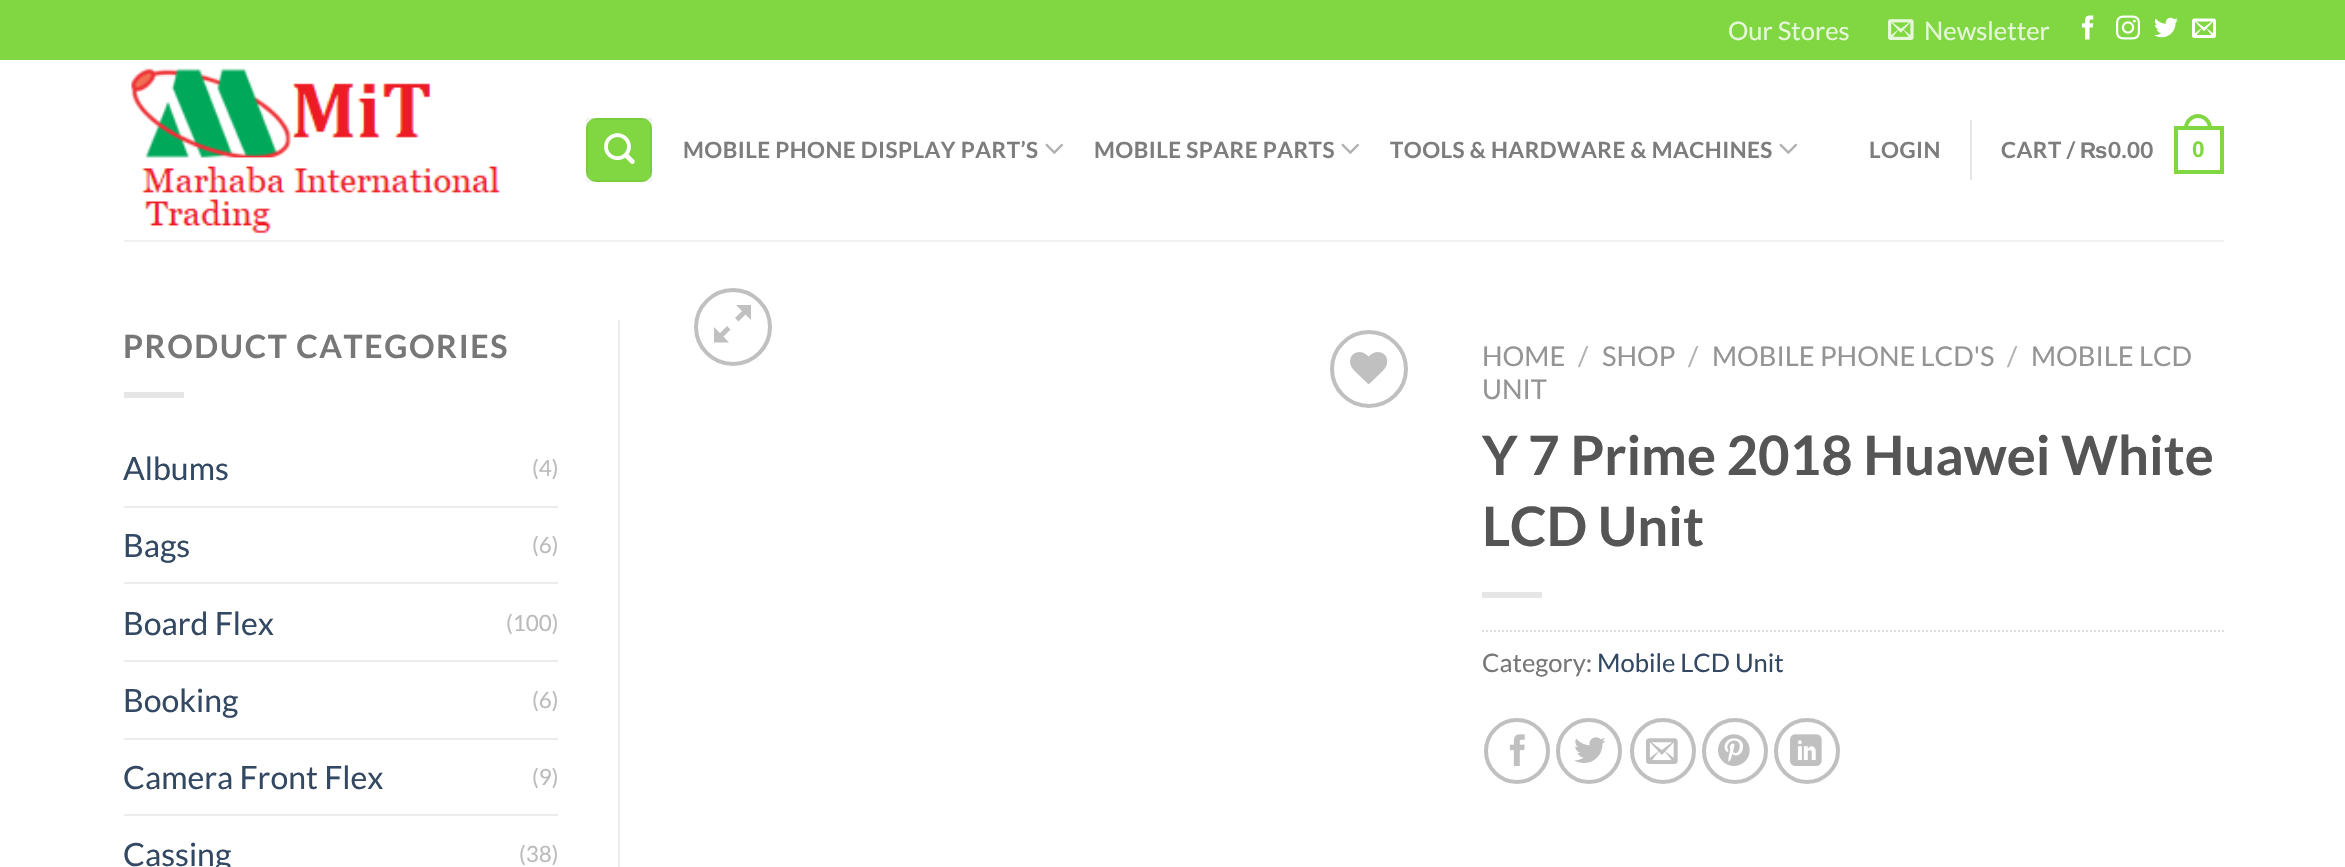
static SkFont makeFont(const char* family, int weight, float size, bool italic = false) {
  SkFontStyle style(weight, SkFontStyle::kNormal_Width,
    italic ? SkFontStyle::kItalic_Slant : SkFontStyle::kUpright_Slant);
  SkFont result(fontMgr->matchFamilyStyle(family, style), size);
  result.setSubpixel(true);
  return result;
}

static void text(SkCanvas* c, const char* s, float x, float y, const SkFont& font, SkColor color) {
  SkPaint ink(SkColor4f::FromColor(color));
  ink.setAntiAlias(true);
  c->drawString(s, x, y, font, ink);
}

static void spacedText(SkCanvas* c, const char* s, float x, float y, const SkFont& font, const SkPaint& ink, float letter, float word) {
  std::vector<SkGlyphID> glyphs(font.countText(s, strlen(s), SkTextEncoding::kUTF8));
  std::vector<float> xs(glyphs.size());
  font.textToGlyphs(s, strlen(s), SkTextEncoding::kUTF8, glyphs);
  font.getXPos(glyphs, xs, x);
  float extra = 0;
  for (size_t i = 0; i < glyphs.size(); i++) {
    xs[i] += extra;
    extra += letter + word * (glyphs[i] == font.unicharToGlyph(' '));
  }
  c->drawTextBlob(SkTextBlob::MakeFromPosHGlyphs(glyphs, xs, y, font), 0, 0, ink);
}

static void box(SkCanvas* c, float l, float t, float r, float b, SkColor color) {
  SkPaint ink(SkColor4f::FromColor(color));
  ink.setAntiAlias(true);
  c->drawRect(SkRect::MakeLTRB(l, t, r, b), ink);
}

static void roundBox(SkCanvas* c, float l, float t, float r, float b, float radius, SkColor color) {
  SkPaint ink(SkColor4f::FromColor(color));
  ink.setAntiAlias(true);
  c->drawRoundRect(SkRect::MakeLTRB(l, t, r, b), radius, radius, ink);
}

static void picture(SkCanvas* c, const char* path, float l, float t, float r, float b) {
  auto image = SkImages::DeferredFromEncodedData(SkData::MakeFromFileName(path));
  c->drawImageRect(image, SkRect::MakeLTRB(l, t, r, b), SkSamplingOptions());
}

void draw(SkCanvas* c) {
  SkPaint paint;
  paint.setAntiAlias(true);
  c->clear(0xffffffff);
  box(c, 0, 0, 2345, 60, 0xff81d742);
  SkFont face1 = makeFont("Lato", 400, 25.5f);
  text(c, "Our Stores", 1728, 40, face1, 0xffe6f7d9);
  picture(c, "img_01.png", 1888, 19, 1914, 40);
  text(c, "Newsletter", 1924, 40, face1, 0xffe6f7d9);
  picture(c, "img_02.png", 2082, 15, 2094, 40);
  picture(c, "img_03.png", 2116, 15, 2140, 40);
  picture(c, "img_04.png", 2154, 17, 2178, 38);
  picture(c, "img_05.png", 2192, 18, 2216, 38);
  picture(c, "img_06.png", 131, 67, 500, 234);
  roundBox(c, 586, 118, 652, 182, 10, 0xff81d742);
  paint.setStyle(SkPaint::kStroke_Style);
  paint.setStrokeWidth(2);
  paint.setColor(0x0d000000);
  c->drawRect(SkRect::MakeLTRB(587, 119, 651, 181), paint);
  picture(c, "img_07.png", 604, 133, 635, 164);
  SkFont face2 = makeFont("Lato", 700, 22.4f);
  paint.setStyle(SkPaint::kFill_Style);
  paint.setColor(0xff7d7d7d);
  spacedText(c, "MOBILE PHONE DISPLAY PART’S", 683, 158, face2, paint, 0.45f, 0);
  picture(c, "img_08.png", 1045, 143, 1064, 154);
  spacedText(c, "MOBILE SPARE PARTS", 1094, 158, face2, paint, 0.45f, 0);
  picture(c, "img_08.png", 1341, 143, 1360, 154);
  spacedText(c, "TOOLS & HARDWARE & MACHINES", 1390, 158, face2, paint, 0.45f, 0);
  picture(c, "img_08.png", 1779, 143, 1798, 154);
  spacedText(c, "LOGIN", 1869, 158, face2, paint, 0.45f, 0);
  box(c, 1970, 120, 1972, 180, 0xffe6e6e6);
  spacedText(c, "CART /", 2001, 158, face2, paint, 0.45f, 0);
  SkFont face3 = makeFont("Liberation Sans", 700, 22.4f);
  spacedText(c, "₨", 2080, 158, face3, paint, 0.45f, 0);
  spacedText(c, "0.00", 2108, 158, face2, paint, 0.45f, 0);
  paint.setStyle(SkPaint::kStroke_Style);
  paint.setStrokeWidth(4);
  paint.setColor(0xff81d742);
  c->drawRect(SkRect::MakeLTRB(2176, 128, 2222, 172), paint);
  paint.setStyle(SkPaint::kFill_Style);
  c->drawPath(SkPathBuilder(SkPathFillType::kEvenOdd).moveTo(2198, 114).cubicTo(2205.5f, 114, 2212, 120.5f, 2212, 128).lineTo(2212, 130).lineTo(2184, 130).lineTo(2184, 128).cubicTo(2184, 120.5f, 2190.5f, 114, 2198, 114).close().moveTo(2198, 118).cubicTo(2203.5f, 118, 2208, 122.5f, 2208, 128).lineTo(2208, 130).lineTo(2188, 130).lineTo(2188, 128).cubicTo(2188, 122.5f, 2192.5f, 118, 2198, 118).close().detach(), paint);
  spacedText(c, "0", 2192, 157, face3, paint, 0.45f, 0);
  box(c, 124, 240, 2224, 242, 0xfff1f1f1);
  SkFont face4 = makeFont("Lato", 700, 32);
  paint.setColor(0xff777777);
  spacedText(c, "PRODUCT CATEGORIES", 123, 358, face4, paint, 1.6f, 0);
  box(c, 124, 392, 184, 398, 0xffe6e6e6);
  SkFont face5 = makeFont("Lato", 400, 32);
  text(c, "Albums", 123, 480, face5, 0xff334862);
  SkFont face6 = makeFont("Lato", 400, 22.4f);
  text(c, "(4)", 532, 476, face6, 0xffbbbbbb);
  box(c, 124, 506, 558, 508, 0xffececec);
  text(c, "Bags", 123, 557, face5, 0xff334862);
  text(c, "(6)", 532, 553, face6, 0xffbbbbbb);
  box(c, 124, 582, 558, 584, 0xffececec);
  text(c, "Board Flex", 123, 635, face5, 0xff334862);
  text(c, "(100)", 506, 631, face6, 0xffbbbbbb);
  box(c, 124, 660, 558, 662, 0xffececec);
  text(c, "Booking", 123, 712, face5, 0xff334862);
  text(c, "(6)", 532, 708, face6, 0xffbbbbbb);
  box(c, 124, 738, 558, 740, 0xffececec);
  text(c, "Camera Front Flex", 123, 789, face5, 0xff334862);
  text(c, "(9)", 532, 785, face6, 0xffbbbbbb);
  box(c, 124, 814, 558, 816, 0xffececec);
  text(c, "Cassing", 123, 866, face5, 0xff334862);
  text(c, "(38)", 519, 862, face6, 0xffbbbbbb);
  box(c, 618, 320, 620, 867, 0xffececec);
  paint.setStyle(SkPaint::kStroke_Style);
  paint.setColor(0xffc0c0c0);
  c->drawCircle(733, 327, 37, paint);
  paint.setStyle(SkPaint::kFill_Style);
  c->drawPath(SkPathBuilder().moveTo(751, 305).lineTo(751, 320).lineTo(745.5f, 314.5f).lineTo(738.5f, 321.5f).lineTo(735, 318).lineTo(742, 311).lineTo(736, 305).close().moveTo(730.5f, 329.5f).lineTo(723.5f, 336.5f).lineTo(729, 342.5f).lineTo(714, 342.5f).lineTo(714, 327).lineTo(720, 333).lineTo(727, 326).close().detach(), paint);
  paint.setStyle(SkPaint::kStroke_Style);
  c->drawCircle(1369, 369, 37, paint);
  picture(c, "img_09.png", 1350, 352, 1388, 384);
  SkFont face7 = makeFont("Lato", 400, 27.25f);
  text(c, "HOME", 1482, 366, face7, 0xff949494);
  text(c, "/", 1578, 366, face7, 0xffb2b2b2);
  text(c, "SHOP", 1602, 366, face7, 0xff949494);
  text(c, "/", 1688, 366, face7, 0xffb2b2b2);
  text(c, "MOBILE PHONE LCD'S", 1712, 366, face7, 0xff949494);
  text(c, "/", 2007, 366, face7, 0xffb2b2b2);
  text(c, "MOBILE LCD", 2031, 366, face7, 0xff949494);
  text(c, "UNIT", 1482, 399, face7, 0xff949494);
  SkFont face8 = makeFont("Lato", 700, 54.4f);
  text(c, "Y 7 Prime 2018 Huawei White", 1482, 475, face8, 0xff555555);
  text(c, "LCD Unit", 1482, 546, face8, 0xff555555);
  box(c, 1482, 592, 1542, 598, 0xffe6e6e6);
  paint.setStrokeWidth(2);
  paint.setColor(0xffdddddd);
  paint.setPathEffect(SkDashPathEffect::Make({{2, 2}}, 0));
  c->drawPath(SkPathBuilder().moveTo(1482, 631).lineTo(2224, 631).detach(), paint);
  paint.setPathEffect(nullptr);
  text(c, "Category:", 1482, 672, face1, 0xff777777);
  text(c, "Mobile LCD Unit", 1597, 672, face1, 0xff334862);
  paint.setStrokeWidth(4);
  paint.setColor(0xffc0c0c0);
  c->drawCircle(1517, 751, 31, paint);
  picture(c, "img_10.png", 1509, 734, 1525, 766);
  c->drawCircle(1589, 751, 31, paint);
  picture(c, "img_11.png", 1574, 737, 1606, 763);
  c->drawCircle(1663, 751, 31, paint);
  picture(c, "img_12.png", 1646, 738, 1678, 764);
  c->drawCircle(1735, 751, 31, paint);
  picture(c, "img_13.png", 1718, 734, 1750, 766);
  c->drawCircle(1807, 751, 31, paint);
  picture(c, "img_14.png", 1790, 734, 1822, 766);
}
